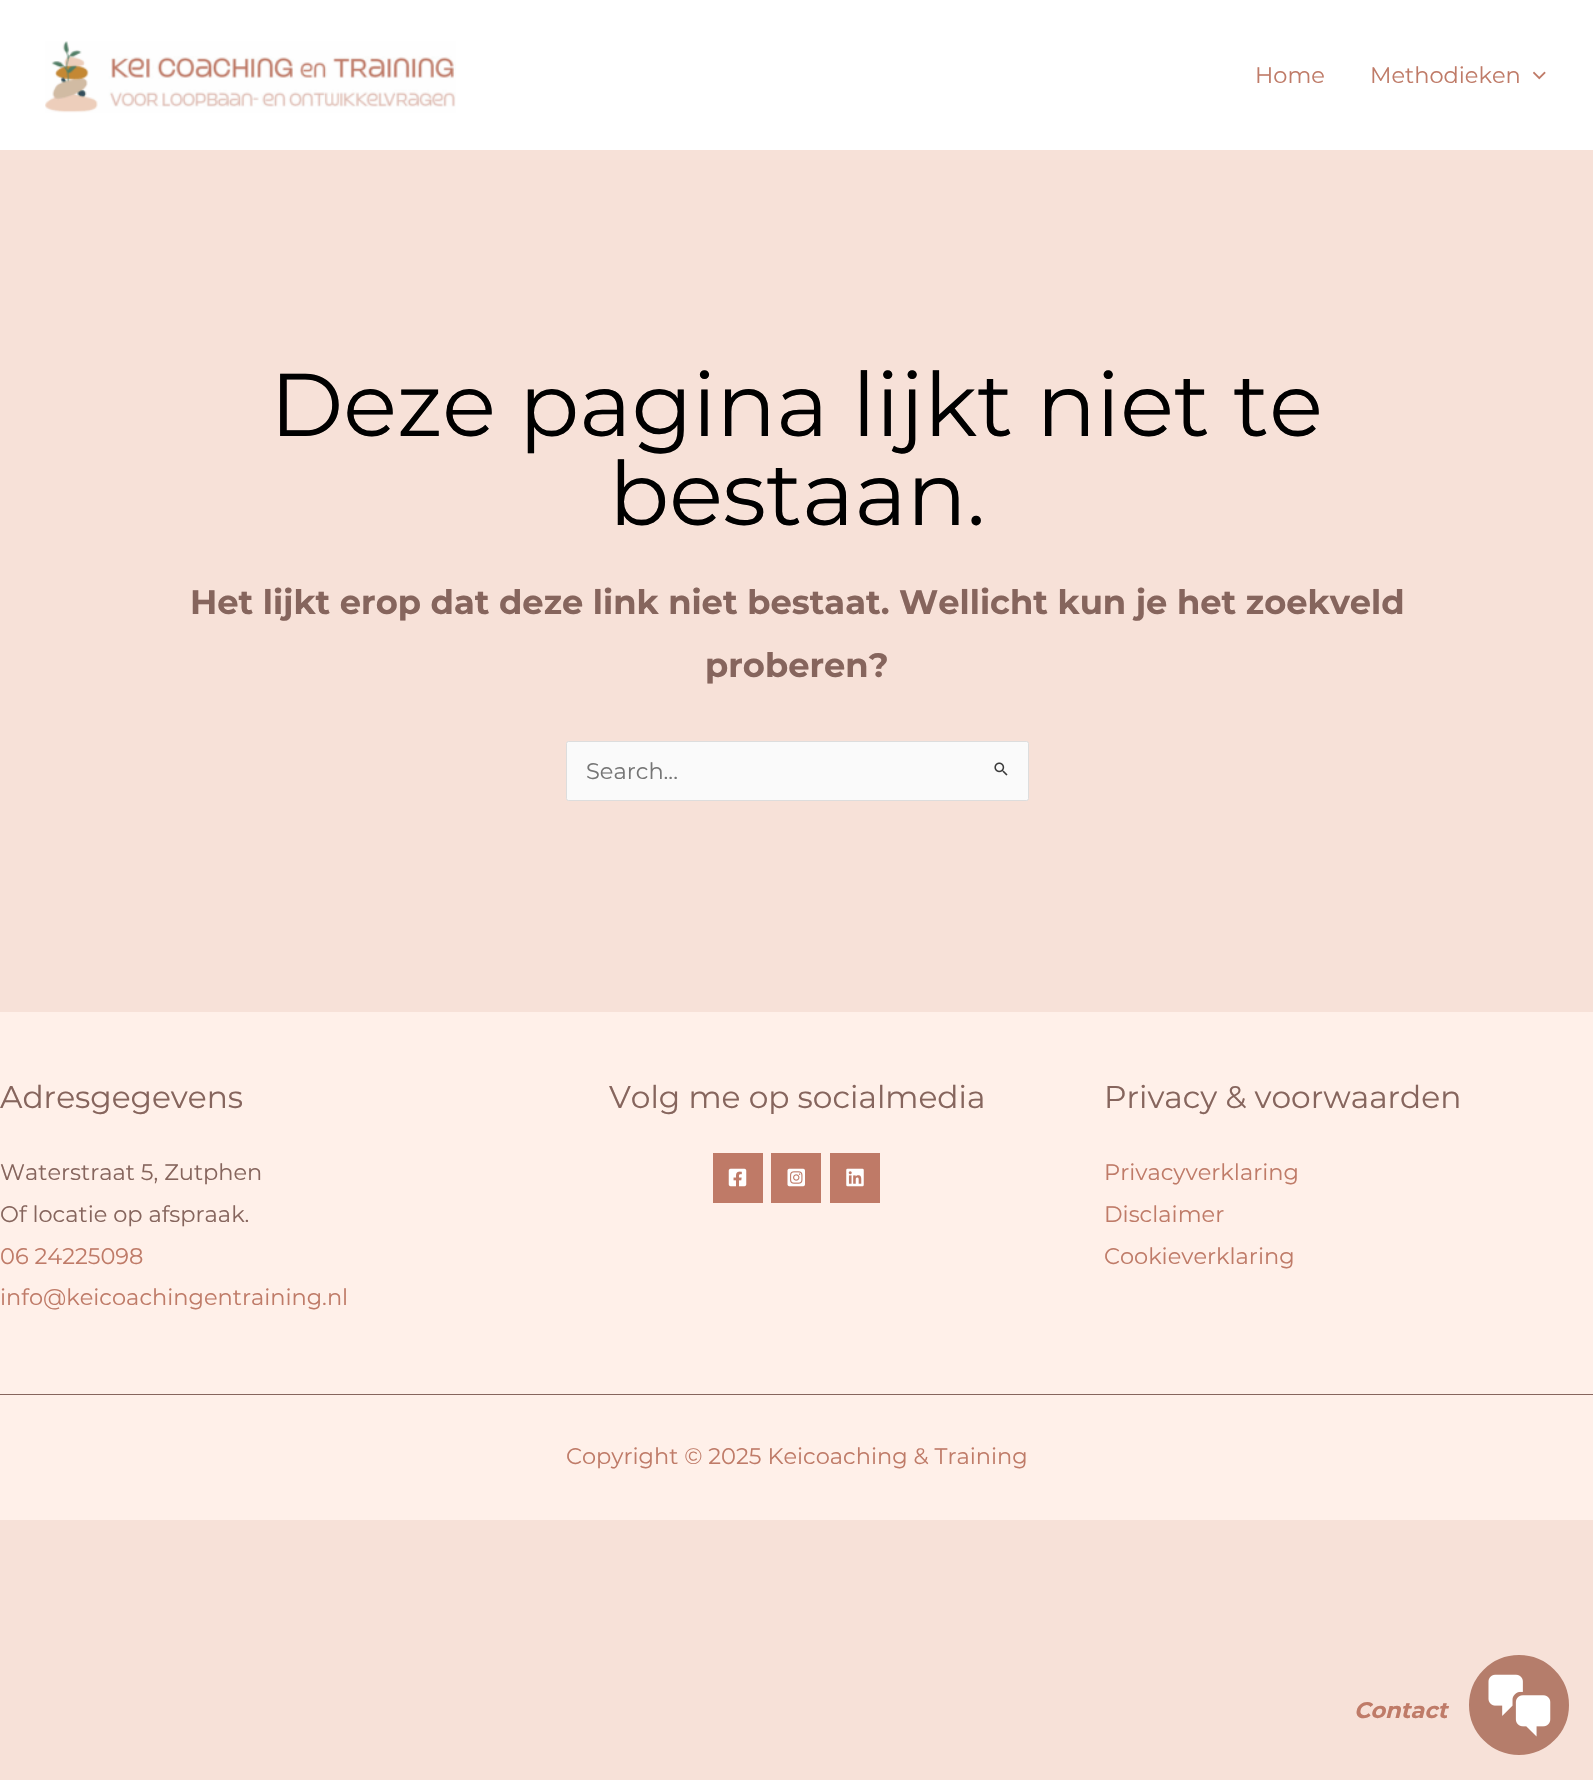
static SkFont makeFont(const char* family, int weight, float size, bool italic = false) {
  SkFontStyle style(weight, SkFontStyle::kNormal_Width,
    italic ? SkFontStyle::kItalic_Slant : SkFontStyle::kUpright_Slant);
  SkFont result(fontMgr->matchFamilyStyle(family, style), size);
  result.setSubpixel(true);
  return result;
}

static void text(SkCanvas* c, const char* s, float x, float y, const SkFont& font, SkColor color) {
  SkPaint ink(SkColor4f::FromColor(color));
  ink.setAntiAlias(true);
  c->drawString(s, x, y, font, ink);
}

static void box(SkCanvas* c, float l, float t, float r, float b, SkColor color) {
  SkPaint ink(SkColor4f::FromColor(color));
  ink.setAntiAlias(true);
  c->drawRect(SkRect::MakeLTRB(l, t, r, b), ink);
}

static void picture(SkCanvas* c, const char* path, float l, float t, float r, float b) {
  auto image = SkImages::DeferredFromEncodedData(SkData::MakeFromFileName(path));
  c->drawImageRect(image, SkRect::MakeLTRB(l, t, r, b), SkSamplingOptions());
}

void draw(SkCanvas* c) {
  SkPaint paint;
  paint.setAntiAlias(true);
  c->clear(0xfff7e1d8);
  box(c, 0, 0, 1593, 150, 0xffffffff);
  picture(c, "img_01.png", 45, 41, 456, 113);
  SkFont face1 = makeFont("Montserrat", 400, 22.5f);
  text(c, "Home", 1255, 83, face1, 0xffbf7b68);
  text(c, "Methodieken", 1370, 83, face1, 0xffbf7b68);
  picture(c, "img_02.png", 1533, 71, 1546, 80);
  SkFont face2 = makeFont("Montserrat", 400, 88.75f);
  text(c, "Deze pagina lijkt niet te", 270, 436, face2, 0xff000000);
  text(c, "bestaan.", 609, 525, face2, 0xff000000);
  SkFont face3 = makeFont("Montserrat", 700, 33.75f);
  text(c, "Het lijkt erop dat deze link niet bestaat. Wellicht kun je het zoekveld", 190, 614, face3, 0xff86655d);
  text(c, "proberen?", 705, 677, face3, 0xff86655d);
  paint.setColor(0xfffafafa);
  c->drawRoundRect(SkRect::MakeLTRB(566.5f, 741.5f, 1028.5f, 800.5f), 2, 2, paint);
  paint.setStyle(SkPaint::kStroke_Style);
  paint.setStrokeWidth(1);
  paint.setColor(0xffdddddd);
  c->drawRoundRect(SkRect::MakeLTRB(566.5f, 741.5f, 1028.5f, 800.5f), 2, 2, paint);
  text(c, "Search...", 586, 779, face1, 0xff757575);
  picture(c, "img_03.png", 994, 762, 1008, 776);
  box(c, 0, 1012, 1593, 1520, 0xfffff0e9);
  SkFont face4 = makeFont("Montserrat", 400, 31.25f);
  text(c, "Adresgegevens", 0, 1108, face4, 0xff86655d);
  text(c, "Waterstraat 5, Zutphen", 0, 1180, face1, 0xff86655d);
  text(c, "Of locatie op afspraak.", 0, 1222, face1, 0xff86655d);
  text(c, "06 24225098", 0, 1264, face1, 0xffbf7b68);
  text(c, "info@keicoachingentraining.nl", 0, 1305, face1, 0xffbf7b68);
  text(c, "Volg me op socialmedia", 609, 1108, face4, 0xff86655d);
  box(c, 713, 1153, 763, 1203, 0xffbf7a67);
  picture(c, "img_04.png", 728, 1168, 747, 1187);
  box(c, 771, 1153, 821, 1203, 0xffbf7a67);
  picture(c, "img_05.png", 787, 1168, 805, 1187);
  box(c, 830, 1153, 880, 1203, 0xffbf7a67);
  picture(c, "img_06.png", 846, 1168, 864, 1187);
  text(c, "Privacy & voorwaarden", 1104, 1108, face4, 0xff86655d);
  text(c, "Privacyverklaring", 1104, 1180, face1, 0xffbf7b68);
  text(c, "Disclaimer", 1104, 1222, face1, 0xffbf7b68);
  text(c, "Cookieverklaring", 1104, 1264, face1, 0xffbf7b68);
  box(c, 0, 1394, 1593, 1395, 0xff86655d);
  text(c, "Copyright © 2025 Keicoaching & Training", 566, 1464, face1, 0xffbf7b68);
  paint.setStyle(SkPaint::kFill_Style);
  paint.setColor(0xffb57d6b);
  c->drawCircle(1519, 1705, 48, paint);
  paint.setStyle(SkPaint::kStroke_Style);
  paint.setStrokeWidth(4);
  c->drawCircle(1519, 1705, 48, paint);
  SkFont face5 = makeFont("Montserrat", 700, 22.5f, true);
  text(c, "Contact", 1354, 1718, face5, 0xffbf7b68);
  picture(c, "img_07.png", 1488, 1674, 1551, 1737);
}
